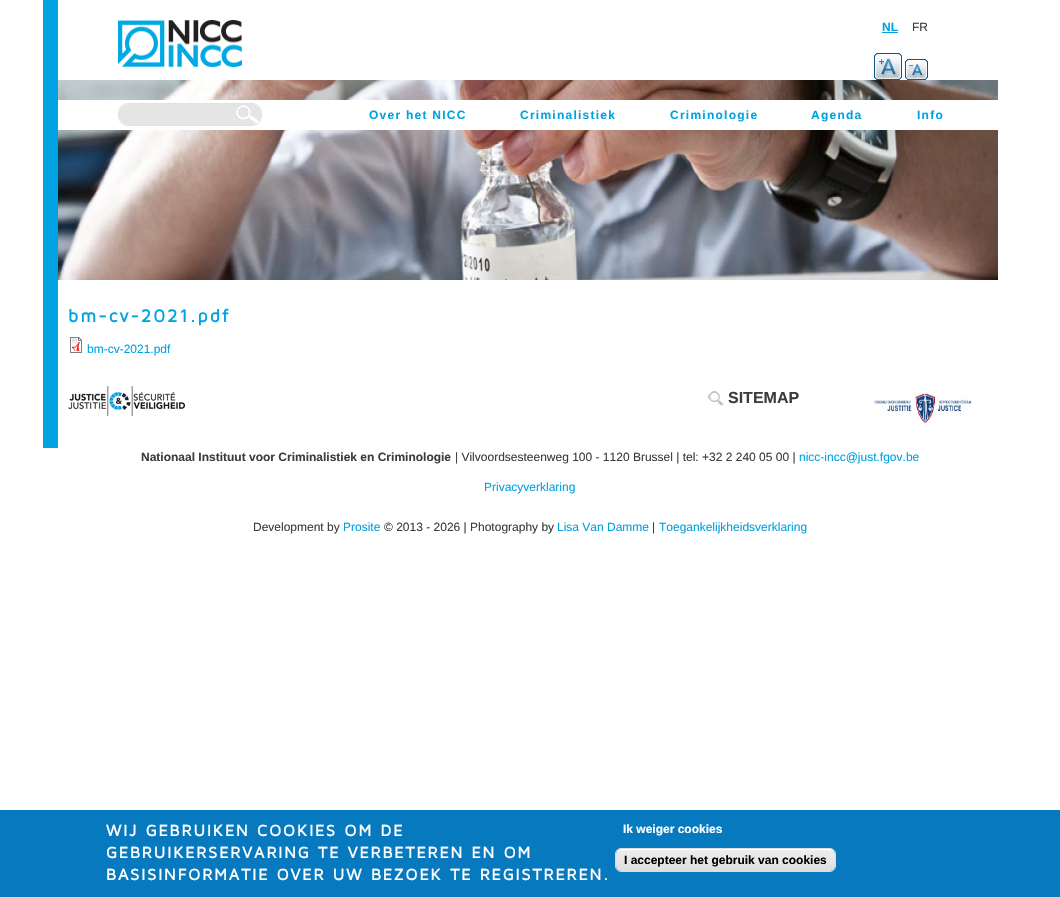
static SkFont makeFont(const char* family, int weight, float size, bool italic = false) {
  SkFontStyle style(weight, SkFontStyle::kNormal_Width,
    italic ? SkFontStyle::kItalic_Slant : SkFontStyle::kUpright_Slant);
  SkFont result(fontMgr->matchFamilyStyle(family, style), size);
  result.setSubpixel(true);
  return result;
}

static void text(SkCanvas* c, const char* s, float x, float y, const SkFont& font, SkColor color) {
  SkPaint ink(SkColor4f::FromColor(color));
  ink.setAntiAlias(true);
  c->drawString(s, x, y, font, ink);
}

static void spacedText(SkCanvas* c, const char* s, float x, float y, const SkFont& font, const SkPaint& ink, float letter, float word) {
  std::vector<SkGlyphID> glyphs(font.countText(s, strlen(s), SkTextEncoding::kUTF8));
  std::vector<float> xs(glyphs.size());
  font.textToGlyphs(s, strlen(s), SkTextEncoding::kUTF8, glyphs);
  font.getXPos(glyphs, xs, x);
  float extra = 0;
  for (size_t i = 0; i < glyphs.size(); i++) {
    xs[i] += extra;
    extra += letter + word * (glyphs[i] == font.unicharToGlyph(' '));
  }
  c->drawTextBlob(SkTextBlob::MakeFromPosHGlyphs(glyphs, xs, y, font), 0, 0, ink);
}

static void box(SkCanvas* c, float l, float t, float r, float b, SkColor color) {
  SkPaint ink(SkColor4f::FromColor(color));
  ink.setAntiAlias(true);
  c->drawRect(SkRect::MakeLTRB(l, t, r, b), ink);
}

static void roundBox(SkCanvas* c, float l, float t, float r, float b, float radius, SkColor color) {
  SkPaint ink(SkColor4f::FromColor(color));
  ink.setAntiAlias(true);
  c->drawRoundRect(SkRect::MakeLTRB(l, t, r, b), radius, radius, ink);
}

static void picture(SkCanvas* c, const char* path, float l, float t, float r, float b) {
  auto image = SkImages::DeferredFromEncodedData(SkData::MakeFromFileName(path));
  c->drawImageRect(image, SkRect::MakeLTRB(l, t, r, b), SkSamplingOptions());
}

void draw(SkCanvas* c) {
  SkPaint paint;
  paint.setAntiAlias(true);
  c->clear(0xffffffff);
  box(c, 43, 0, 58, 80, 0xff00a2e1);
  picture(c, "img_01.png", 118, 20, 242, 67);
  SkFont face1 = makeFont("Liberation Sans", 700, 12);
  text(c, "NL", 882, 31, face1, 0xff00a2e1);
  box(c, 882, 32, 898, 33, 0xff00a2e1);
  SkFont face2 = makeFont("Liberation Sans", 400, 12);
  text(c, "FR", 912, 31, face2, 0xff3c3c3e);
  picture(c, "img_02.png", 874, 53, 902, 80);
  picture(c, "img_03.png", 905, 59, 928, 80);
  picture(c, "img_04.png", 58, 80, 998, 280);
  box(c, 58, 100, 998, 130, 0xffffffff);
  roundBox(c, 119, 104, 261, 125, 9, 0xffe6e5e5);
  picture(c, "img_05.png", 236, 105, 259, 123);
  paint.setStyle(SkPaint::kStroke_Style);
  paint.setStrokeWidth(1);
  paint.setColor(0xffe0e1e2);
  c->drawRoundRect(SkRect::MakeLTRB(118.5f, 103.5f, 261.5f, 125.5f), 9.5f, 9.5f, paint);
  paint.setStyle(SkPaint::kFill_Style);
  paint.setColor(0xff00a2e1);
  spacedText(c, "Over het NICC", 369, 119, face1, paint, 1.25f, 0);
  spacedText(c, "Criminalistiek", 520, 119, face1, paint, 1.25f, 0);
  spacedText(c, "Criminologie", 670, 119, face1, paint, 1.25f, 0);
  spacedText(c, "Agenda", 811, 119, face1, paint, 1.25f, 0);
  spacedText(c, "Info", 917, 119, face1, paint, 1.25f, 0);
  box(c, 43, 80, 58, 448, 0xff00a2e1);
  SkFont face3 = makeFont("Maven Pro", 700, 18);
  spacedText(c, "bm-cv-2021.pdf", 68, 322, face3, paint, 2, 0);
  picture(c, "img_06.png", 70, 337, 82, 353);
  text(c, "bm-cv-2021.pdf", 87, 353, face2, 0xff00a2e1);
  picture(c, "img_07.png", 68, 386, 185, 416);
  picture(c, "img_08.png", 708, 391, 724, 406);
  SkFont face4 = makeFont("Liberation Sans", 700, 16);
  text(c, "SITEMAP", 728, 403, face4, 0xff3c3c3e);
  picture(c, "img_09.png", 874, 393, 972, 424);
  text(c, "Nationaal Instituut voor Criminalistiek en Criminologie", 141, 461, face1, 0xff3c3c3e);
  text(c, "| Vilvoordsesteenweg 100 - 1120 Brussel | tel: +32 2 240 05 00 |", 455, 461, face2, 0xff3c3c3e);
  text(c, "nicc-incc@just.fgov.be", 799, 461, face2, 0xff00a2e1);
  text(c, "Privacyverklaring", 484, 491, face2, 0xff00a2e1);
  text(c, "Development by", 253, 531, face2, 0xff3c3c3e);
  text(c, "Prosite", 343, 531, face2, 0xff00a2e1);
  text(c, "© 2013 - 2026 | Photography by", 384, 531, face2, 0xff3c3c3e);
  text(c, "Lisa Van Damme", 557, 531, face2, 0xff00a2e1);
  text(c, "|", 652, 531, face2, 0xff3c3c3e);
  text(c, "Toegankelijkheidsverklaring", 659, 531, face2, 0xff00a2e1);
  box(c, 0, 810, 1060, 897, 0xff0779bf);
  SkFont face5 = makeFont("Maven Pro", 700, 16);
  paint.setColor(0xffffffff);
  spacedText(c, "WIJ GEBRUIKEN COOKIES OM DE", 106, 836, face5, paint, 2, 0);
  spacedText(c, "GEBRUIKERSERVARING TE VERBETEREN EN OM", 106, 858, face5, paint, 2, 0);
  spacedText(c, "BASISINFORMATIE OVER UW BEZOEK TE REGISTREREN.", 106, 880, face5, paint, 2, 0);
  text(c, "Ik weiger cookies", 623, 833, face1, 0xffffffff);
  {
    const SkColor colors[] = {0xffededed, 0xffdfdfdf};
    const float stops[] = {0.05f, 1};
    const SkPoint ends[] = {{726, 849}, {726, 871}};
    paint.setShader(SkGradientShader::MakeLinear(ends, colors, stops, 2, SkTileMode::kClamp));
    paint.setAlpha(255);
  }
  c->drawRoundRect(SkRect::MakeLTRB(616, 849, 835, 871), 5, 5, paint);
  paint.setShader(nullptr);
  paint.setColor(0xffffffff);
  c->drawPath(SkPathBuilder().moveTo(621, 850).lineTo(830, 850).cubicTo(833, 850, 835, 852, 835, 855).cubicTo(835, 852, 833, 849, 830, 849).lineTo(620, 849).cubicTo(617, 850, 616, 852, 616, 855).cubicTo(616, 852, 618, 850, 621, 850).close().detach(), paint);
  paint.setStyle(SkPaint::kStroke_Style);
  paint.setColor(0xffdcdcdc);
  c->drawRoundRect(SkRect::MakeLTRB(615.5f, 848.5f, 835.5f, 871.5f), 5.5f, 5.5f, paint);
  text(c, "I accepteer het gebruik van cookies", 624, 864, face1, 0xff000000);
}
